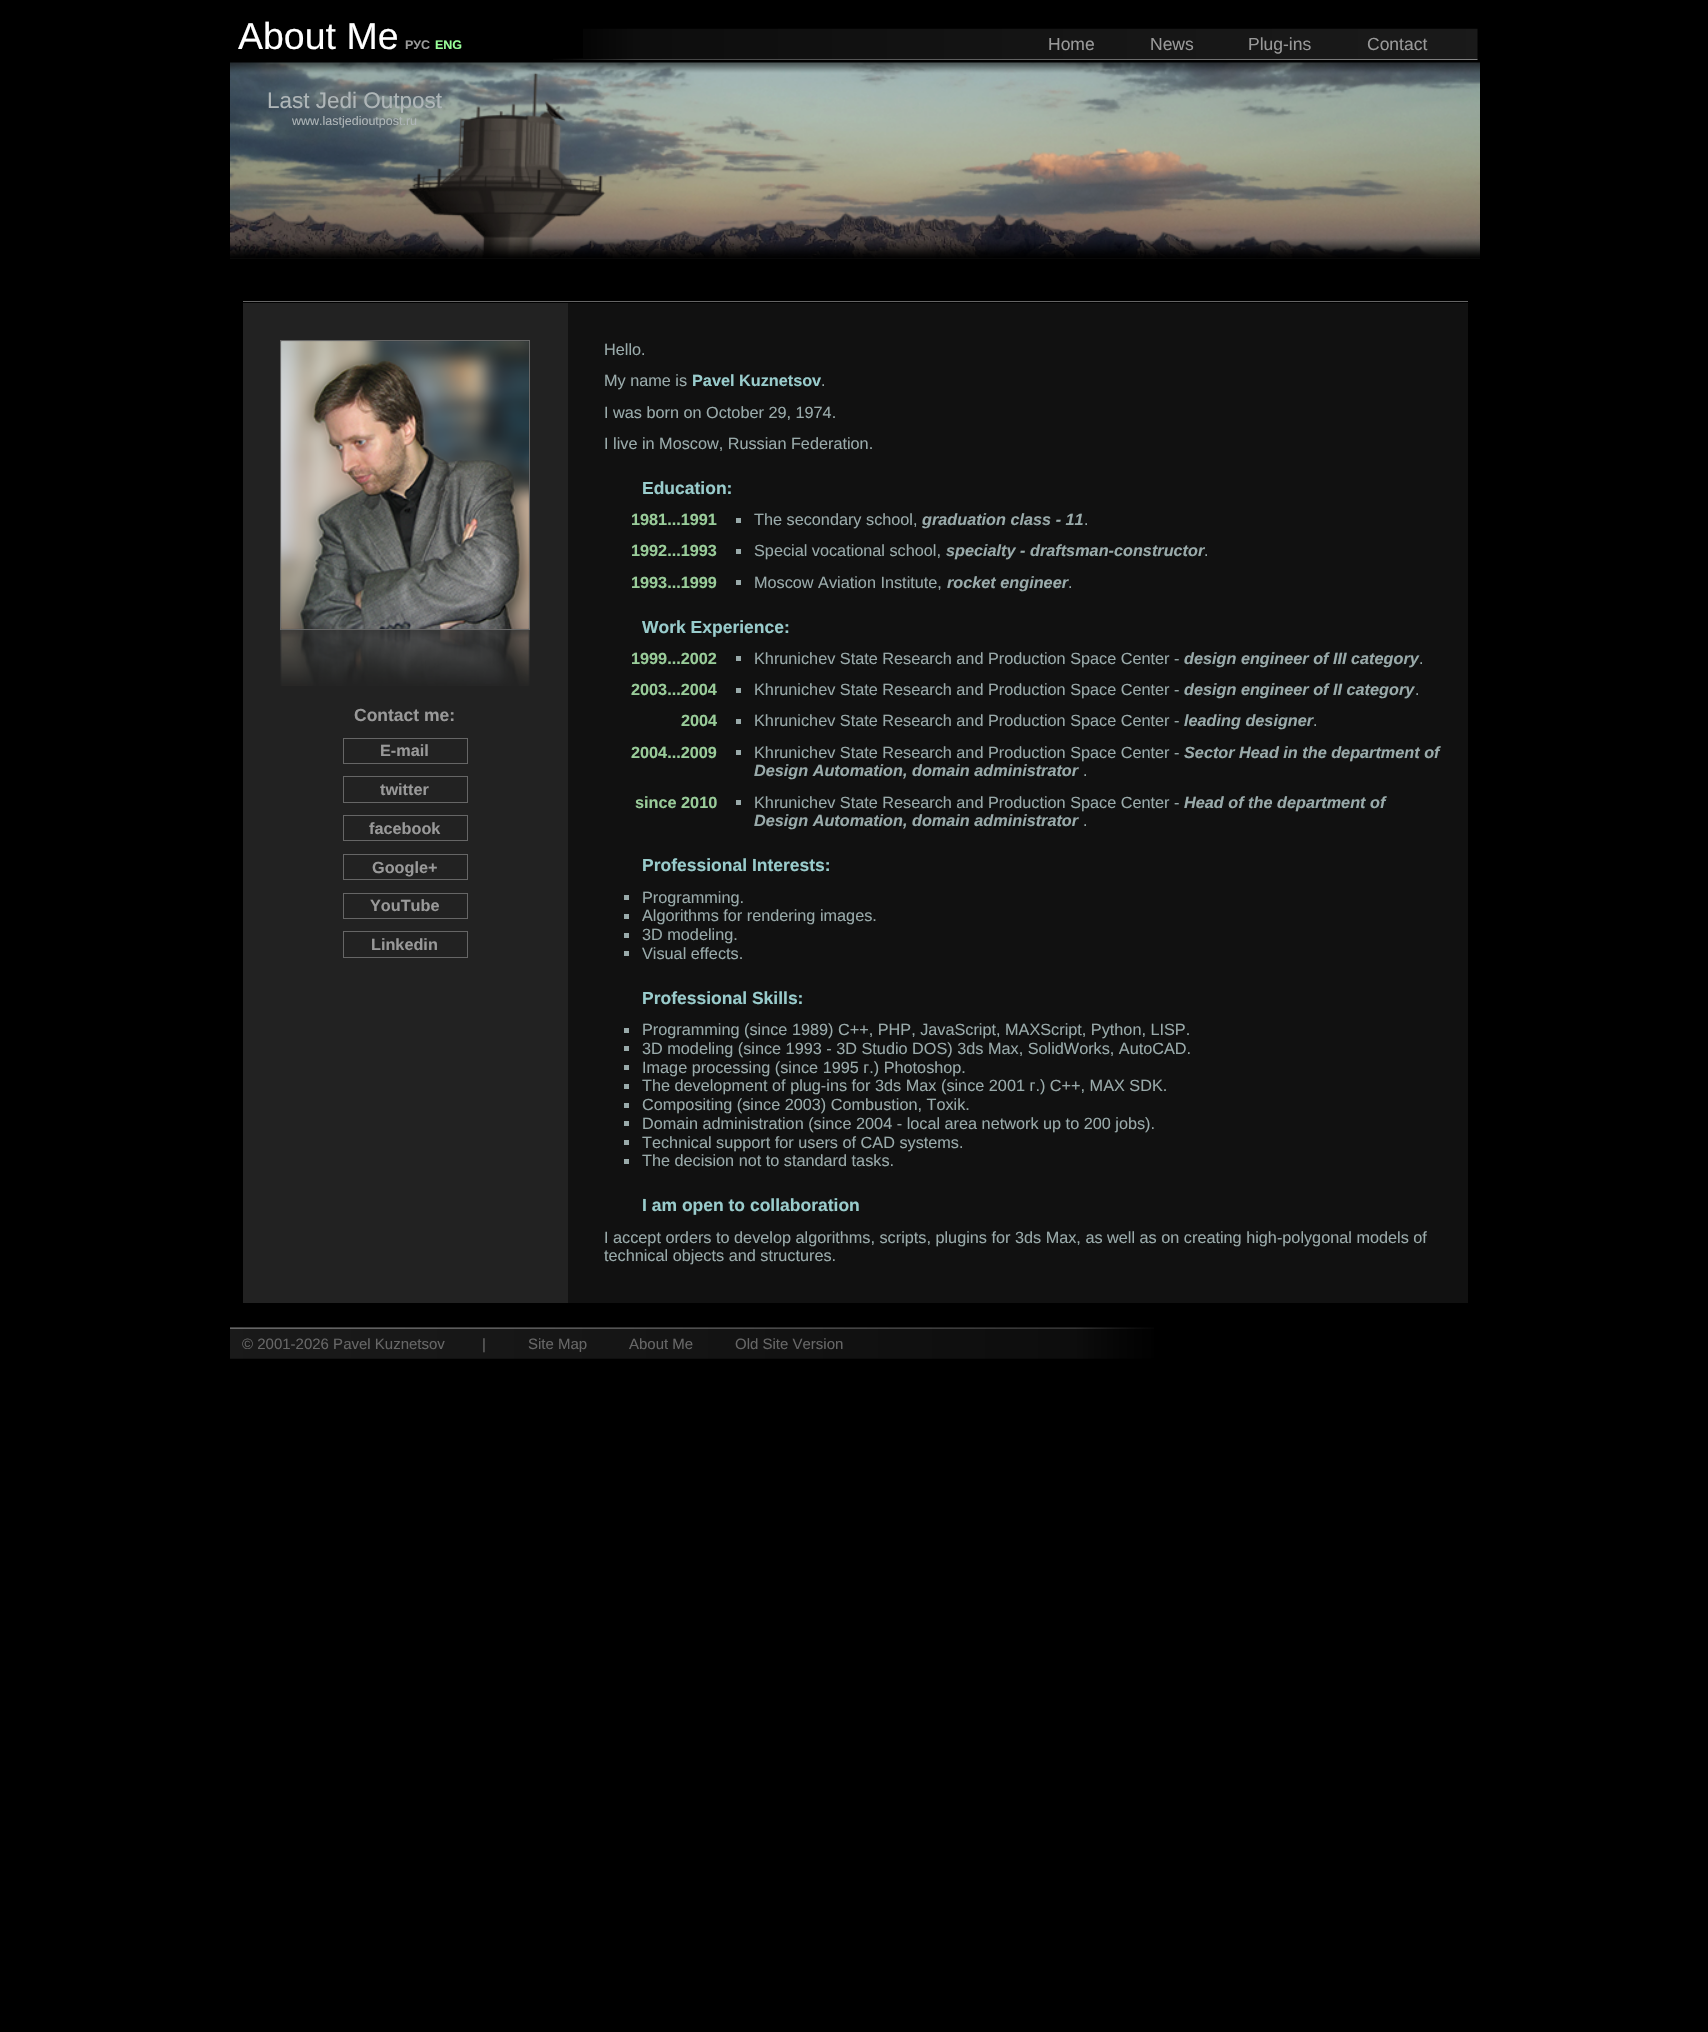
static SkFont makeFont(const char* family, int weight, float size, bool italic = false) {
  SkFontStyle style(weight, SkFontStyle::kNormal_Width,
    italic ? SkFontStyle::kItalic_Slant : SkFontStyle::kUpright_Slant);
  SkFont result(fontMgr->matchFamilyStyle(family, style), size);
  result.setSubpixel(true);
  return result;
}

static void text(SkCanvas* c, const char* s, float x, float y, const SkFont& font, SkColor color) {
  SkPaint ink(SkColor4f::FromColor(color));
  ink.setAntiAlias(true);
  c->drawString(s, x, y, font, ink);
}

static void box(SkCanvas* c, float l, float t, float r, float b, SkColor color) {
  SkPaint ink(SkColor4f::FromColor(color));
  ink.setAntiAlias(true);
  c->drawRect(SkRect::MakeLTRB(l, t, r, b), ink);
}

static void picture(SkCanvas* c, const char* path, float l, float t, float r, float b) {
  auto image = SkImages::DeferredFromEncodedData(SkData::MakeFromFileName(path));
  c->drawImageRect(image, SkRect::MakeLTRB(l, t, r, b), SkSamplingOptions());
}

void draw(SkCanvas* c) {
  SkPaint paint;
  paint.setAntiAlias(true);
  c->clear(0xff000000);
  picture(c, "img_01.png", 553, 58, 1478, 60);
  SkFont face1 = makeFont("Liberation Sans", 400, 37.5f);
  text(c, "About Me", 238, 49, face1, 0xffffffff);
  SkFont face2 = makeFont("Liberation Sans", 700, 12.5f);
  text(c, "РУС", 405, 49, face2, 0xff999999);
  text(c, "ENG", 435, 49, face2, 0xff99ff99);
  picture(c, "img_02.png", 583, 28, 1478, 59);
  SkFont face3 = makeFont("Liberation Sans", 400, 17.5f);
  text(c, "Home", 1048, 50, face3, 0xff999999);
  text(c, "News", 1150, 50, face3, 0xff999999);
  text(c, "Plug-ins", 1248, 50, face3, 0xff999999);
  text(c, "Contact", 1367, 50, face3, 0xff999999);
  box(c, 230, 258, 1480, 259, 0xff111111);
  picture(c, "img_03.png", 230, 62, 1480, 259);
  SkFont face4 = makeFont("Liberation Sans", 400, 22.5f);
  text(c, "Last Jedi Outpost", 267, 108, face4, 0xffafb6b8);
  SkFont face5 = makeFont("Liberation Sans", 400, 12.5f);
  text(c, "www.lastjedioutpost.ru", 292, 125, face5, 0xffafb6b8);
  box(c, 243, 301, 1468, 302, 0xff666666);
  box(c, 568, 303, 1468, 1303, 0xff111111);
  box(c, 243, 303, 568, 1303, 0xff222222);
  picture(c, "img_04.png", 280, 630, 530, 686);
  picture(c, "img_05.png", 281, 341, 529, 629);
  paint.setStyle(SkPaint::kStroke_Style);
  paint.setStrokeWidth(1);
  paint.setColor(0xff666666);
  c->drawRect(SkRect::MakeLTRB(280.5f, 340.5f, 529.5f, 629.5f), paint);
  picture(c, "img_06.png", 281, 341, 529, 629);
  SkFont face6 = makeFont("Liberation Sans", 700, 17.5f);
  text(c, "Contact me:", 354, 721, face6, 0xff999999);
  c->drawRect(SkRect::MakeLTRB(343.5f, 738.5f, 467.5f, 763.5f), paint);
  SkFont face7 = makeFont("Liberation Sans", 700, 16.25f);
  text(c, "E-mail", 380, 756, face7, 0xff999999);
  c->drawRect(SkRect::MakeLTRB(343.5f, 776.5f, 467.5f, 802.5f), paint);
  text(c, "twitter", 380, 795, face7, 0xff999999);
  c->drawRect(SkRect::MakeLTRB(343.5f, 815.5f, 467.5f, 840.5f), paint);
  text(c, "facebook", 369, 834, face7, 0xff999999);
  c->drawRect(SkRect::MakeLTRB(343.5f, 854.5f, 467.5f, 879.5f), paint);
  text(c, "Google+", 372, 873, face7, 0xff999999);
  c->drawRect(SkRect::MakeLTRB(343.5f, 893.5f, 467.5f, 918.5f), paint);
  text(c, "YouTube", 370, 911, face7, 0xff999999);
  c->drawRect(SkRect::MakeLTRB(343.5f, 931.5f, 467.5f, 957.5f), paint);
  text(c, "Linkedin", 371, 950, face7, 0xff999999);
  SkFont face8 = makeFont("Liberation Sans", 400, 16.25f);
  text(c, "Hello.", 604, 355, face8, 0xff99aaaa);
  text(c, "My name is", 604, 386, face8, 0xff99aaaa);
  text(c, "Pavel Kuznetsov", 692, 386, face7, 0xff99cccc);
  text(c, ".", 821, 386, face8, 0xff99aaaa);
  text(c, "I was born on October 29, 1974.", 604, 418, face8, 0xff99aaaa);
  text(c, "I live in Moscow, Russian Federation.", 604, 449, face8, 0xff99aaaa);
  text(c, "Education:", 642, 494, face6, 0xff99cccc);
  text(c, "1981...1991", 631, 525, face7, 0xff99cc99);
  box(c, 736, 518, 741, 523, 0xff99aaaa);
  text(c, "The secondary school,", 754, 525, face8, 0xff99aaaa);
  SkFont face9 = makeFont("Liberation Sans", 700, 16.25f, true);
  text(c, "graduation class - 11", 922, 525, face9, 0xff99aaaa);
  text(c, ".", 1084, 525, face8, 0xff99aaaa);
  text(c, "1992...1993", 631, 556, face7, 0xff99cc99);
  box(c, 736, 549, 741, 554, 0xff99aaaa);
  text(c, "Special vocational school,", 754, 556, face8, 0xff99aaaa);
  text(c, "specialty - draftsman-constructor", 946, 556, face9, 0xff99aaaa);
  text(c, ".", 1204, 556, face8, 0xff99aaaa);
  text(c, "1993...1999", 631, 588, face7, 0xff99cc99);
  box(c, 736, 580, 741, 585, 0xff99aaaa);
  text(c, "Moscow Aviation Institute,", 754, 588, face8, 0xff99aaaa);
  text(c, "rocket engineer", 947, 588, face9, 0xff99aaaa);
  text(c, ".", 1068, 588, face8, 0xff99aaaa);
  text(c, "Work Experience:", 642, 633, face6, 0xff99cccc);
  text(c, "1999...2002", 631, 664, face7, 0xff99cc99);
  box(c, 736, 656, 741, 661, 0xff99aaaa);
  text(c, "Khrunichev State Research and Production Space Center -", 754, 664, face8, 0xff99aaaa);
  text(c, "design engineer of III category", 1184, 664, face9, 0xff99aaaa);
  text(c, ".", 1419, 664, face8, 0xff99aaaa);
  text(c, "2003...2004", 631, 695, face7, 0xff99cc99);
  box(c, 736, 688, 741, 693, 0xff99aaaa);
  text(c, "Khrunichev State Research and Production Space Center -", 754, 695, face8, 0xff99aaaa);
  text(c, "design engineer of II category", 1184, 695, face9, 0xff99aaaa);
  text(c, ".", 1415, 695, face8, 0xff99aaaa);
  text(c, "2004", 681, 726, face7, 0xff99cc99);
  box(c, 736, 719, 741, 724, 0xff99aaaa);
  text(c, "Khrunichev State Research and Production Space Center -", 754, 726, face8, 0xff99aaaa);
  text(c, "leading designer", 1184, 726, face9, 0xff99aaaa);
  text(c, ".", 1313, 726, face8, 0xff99aaaa);
  text(c, "2004...2009", 631, 758, face7, 0xff99cc99);
  box(c, 736, 750, 741, 755, 0xff99aaaa);
  text(c, "Khrunichev State Research and Production Space Center -", 754, 758, face8, 0xff99aaaa);
  text(c, "Sector Head in the department of", 1184, 758, face9, 0xff99aaaa);
  text(c, "Design Automation, domain administrator", 754, 776, face9, 0xff99aaaa);
  text(c, ".", 1083, 776, face8, 0xff99aaaa);
  text(c, "since 2010", 635, 808, face7, 0xff99cc99);
  box(c, 736, 800, 741, 805, 0xff99aaaa);
  text(c, "Khrunichev State Research and Production Space Center -", 754, 808, face8, 0xff99aaaa);
  text(c, "Head of the department of", 1184, 808, face9, 0xff99aaaa);
  text(c, "Design Automation, domain administrator", 754, 826, face9, 0xff99aaaa);
  text(c, ".", 1083, 826, face8, 0xff99aaaa);
  text(c, "Professional Interests:", 642, 871, face6, 0xff99cccc);
  box(c, 624, 895, 629, 900, 0xff99aaaa);
  text(c, "Programming.", 642, 903, face8, 0xff99aaaa);
  box(c, 624, 914, 629, 919, 0xff99aaaa);
  text(c, "Algorithms for rendering images.", 642, 921, face8, 0xff99aaaa);
  box(c, 624, 933, 629, 938, 0xff99aaaa);
  text(c, "3D modeling.", 642, 940, face8, 0xff99aaaa);
  box(c, 624, 951, 629, 956, 0xff99aaaa);
  text(c, "Visual effects.", 642, 959, face8, 0xff99aaaa);
  text(c, "Professional Skills:", 642, 1004, face6, 0xff99cccc);
  box(c, 624, 1028, 629, 1033, 0xff99aaaa);
  text(c, "Programming (since 1989) C++, PHP, JavaScript, MAXScript, Python, LISP.", 642, 1035, face8, 0xff99aaaa);
  box(c, 624, 1046, 629, 1051, 0xff99aaaa);
  text(c, "3D modeling (since 1993 - 3D Studio DOS) 3ds Max, SolidWorks, AutoCAD.", 642, 1054, face8, 0xff99aaaa);
  box(c, 624, 1065, 629, 1070, 0xff99aaaa);
  text(c, "Image processing (since 1995 г.) Photoshop.", 642, 1073, face8, 0xff99aaaa);
  box(c, 624, 1084, 629, 1089, 0xff99aaaa);
  text(c, "The development of plug-ins for 3ds Max (since 2001 г.) C++, MAX SDK.", 642, 1091, face8, 0xff99aaaa);
  box(c, 624, 1103, 629, 1108, 0xff99aaaa);
  text(c, "Compositing (since 2003) Combustion, Toxik.", 642, 1110, face8, 0xff99aaaa);
  box(c, 624, 1121, 629, 1126, 0xff99aaaa);
  text(c, "Domain administration (since 2004 - local area network up to 200 jobs).", 642, 1129, face8, 0xff99aaaa);
  box(c, 624, 1140, 629, 1145, 0xff99aaaa);
  text(c, "Technical support for users of CAD systems.", 642, 1148, face8, 0xff99aaaa);
  box(c, 624, 1159, 629, 1164, 0xff99aaaa);
  text(c, "The decision not to standard tasks.", 642, 1166, face8, 0xff99aaaa);
  text(c, "I am open to collaboration", 642, 1211, face6, 0xff99cccc);
  text(c, "I accept orders to develop algorithms, scripts, plugins for 3ds Max, as well as on creating high-polygonal models of", 604, 1243, face8, 0xff99aaaa);
  text(c, "technical objects and structures.", 604, 1261, face8, 0xff99aaaa);
  picture(c, "img_07.png", 230, 1327, 1154, 1359);
  SkFont face10 = makeFont("Liberation Sans", 400, 15);
  text(c, "© 2001-2026 Pavel Kuznetsov", 242, 1349, face10, 0xff666666);
  text(c, "|", 482, 1349, face10, 0xff666666);
  text(c, "Site Map", 528, 1349, face10, 0xff666666);
  text(c, "About Me", 629, 1349, face10, 0xff666666);
  text(c, "Old Site Version", 735, 1349, face10, 0xff666666);
}
